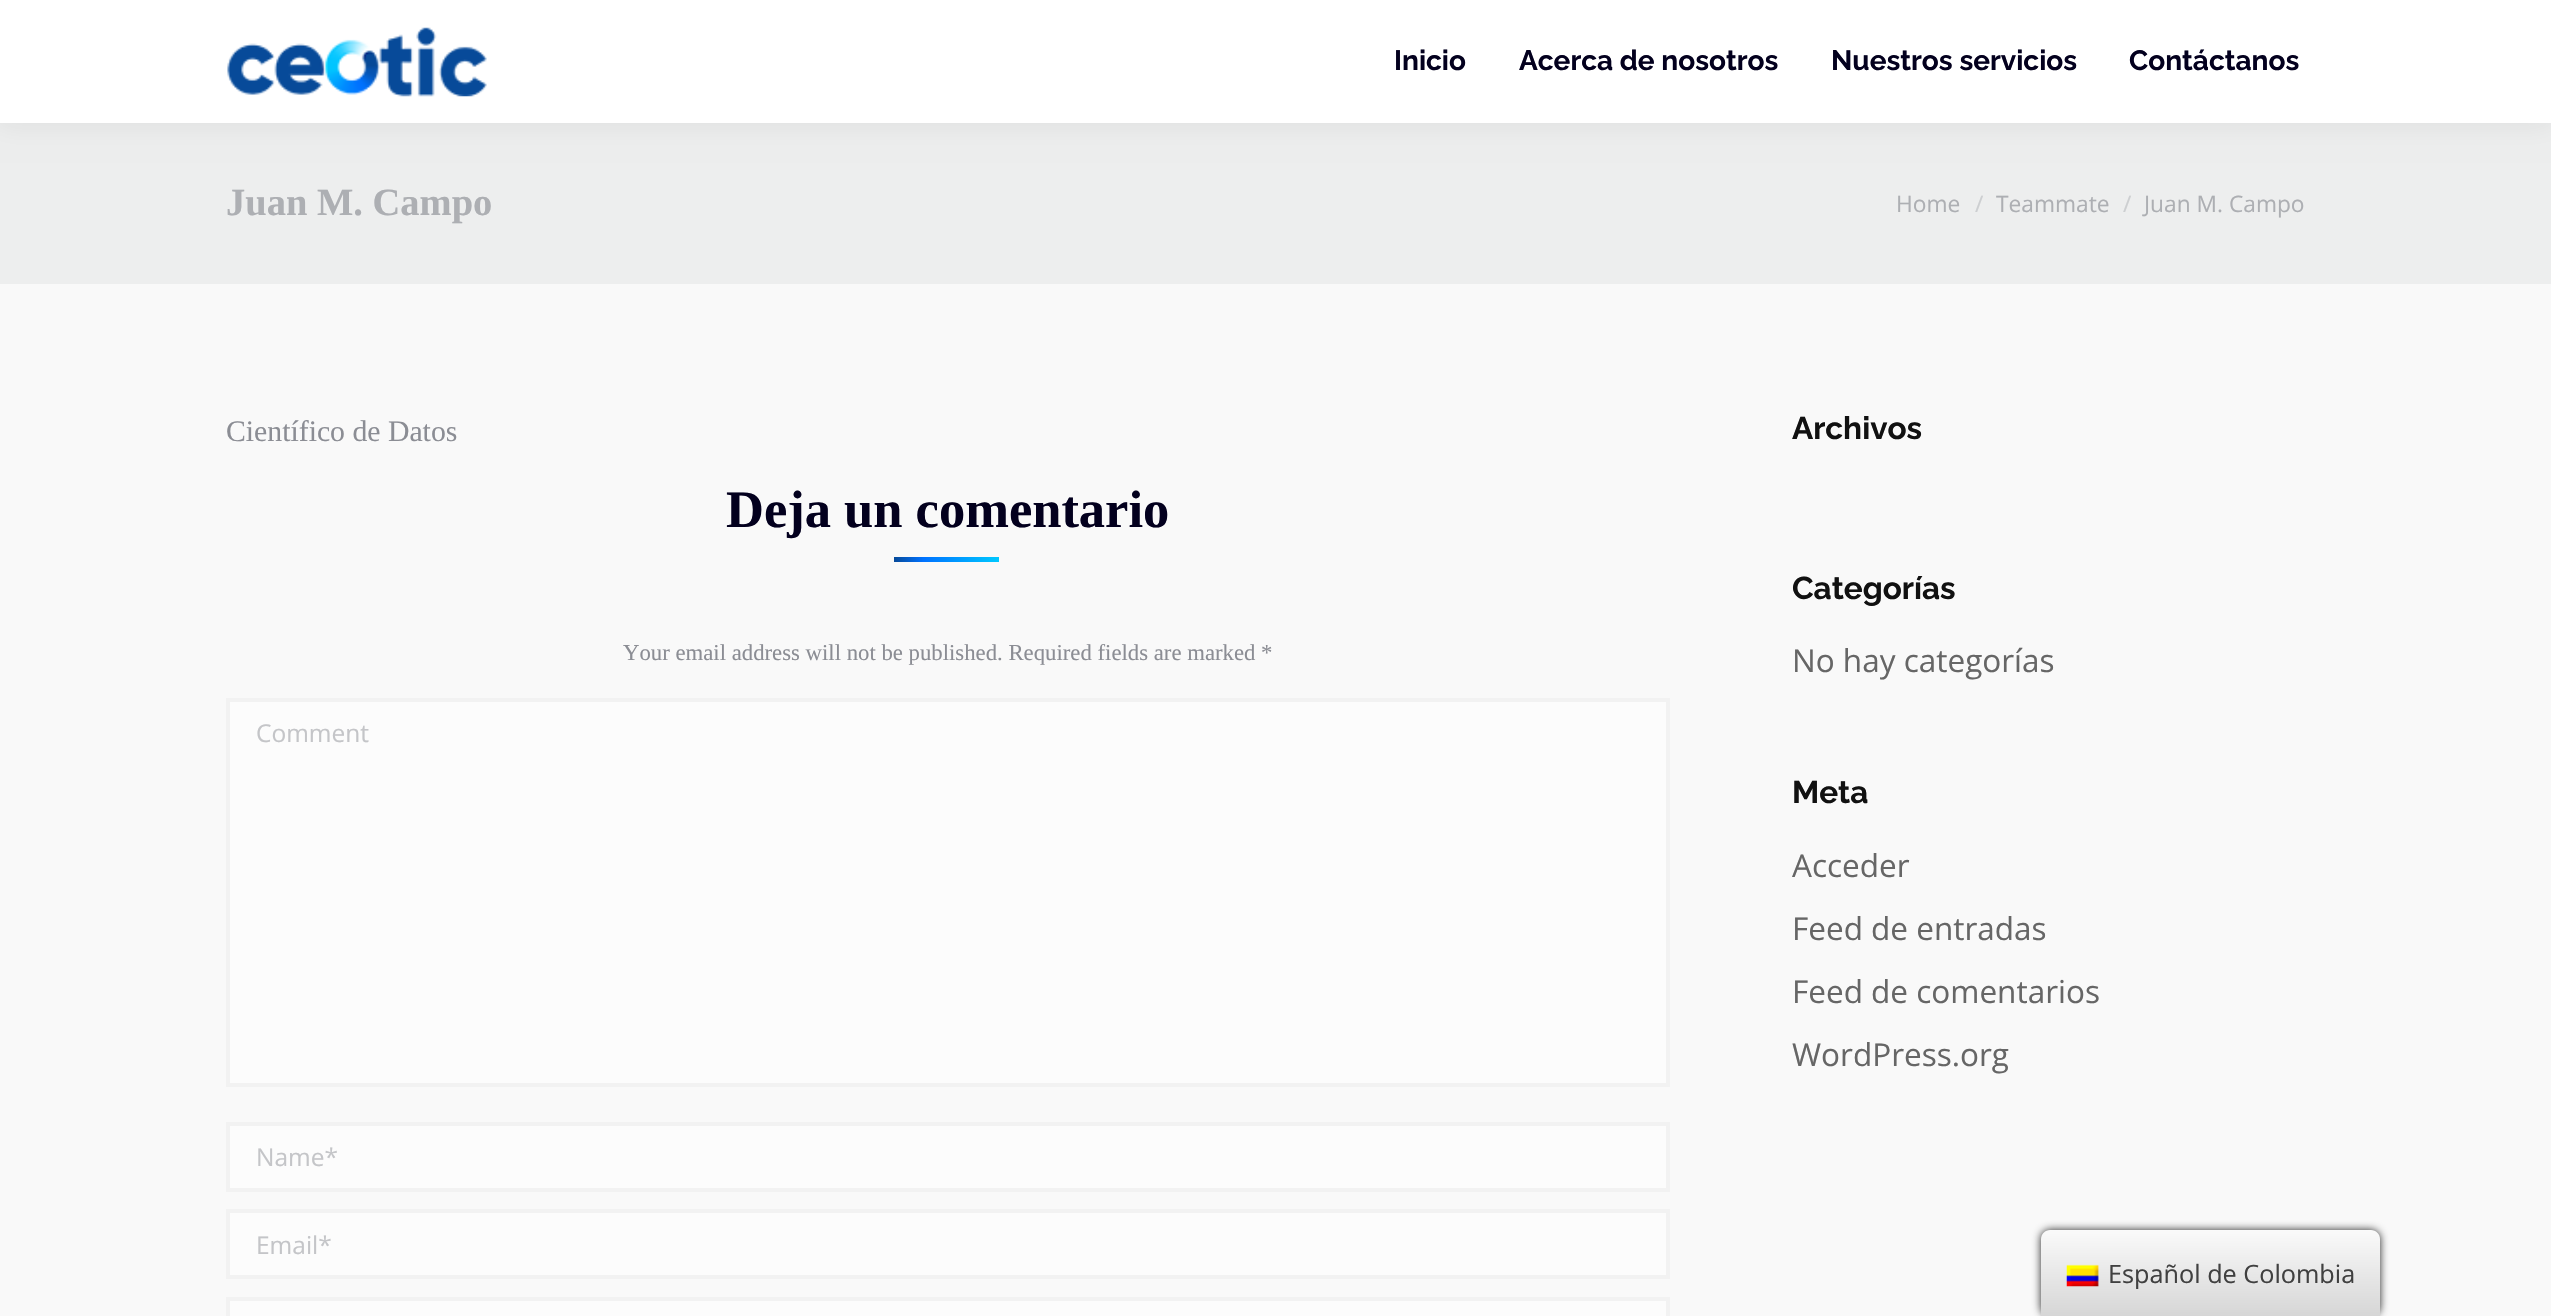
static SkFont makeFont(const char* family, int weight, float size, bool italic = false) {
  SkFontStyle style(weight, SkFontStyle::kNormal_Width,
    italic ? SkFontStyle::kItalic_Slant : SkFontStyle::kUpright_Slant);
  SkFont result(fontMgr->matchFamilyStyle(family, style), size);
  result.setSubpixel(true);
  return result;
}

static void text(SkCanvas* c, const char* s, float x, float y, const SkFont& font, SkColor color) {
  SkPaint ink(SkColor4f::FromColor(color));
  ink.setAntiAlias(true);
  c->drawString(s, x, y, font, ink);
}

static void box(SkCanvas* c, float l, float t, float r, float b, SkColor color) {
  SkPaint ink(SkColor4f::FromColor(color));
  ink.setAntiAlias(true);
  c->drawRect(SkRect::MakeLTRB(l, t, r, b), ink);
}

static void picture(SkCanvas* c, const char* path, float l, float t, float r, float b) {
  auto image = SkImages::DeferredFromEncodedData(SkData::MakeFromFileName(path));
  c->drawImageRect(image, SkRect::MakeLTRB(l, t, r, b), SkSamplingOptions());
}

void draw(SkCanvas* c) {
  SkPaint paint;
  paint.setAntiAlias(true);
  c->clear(0xfff9f9f9);
  box(c, 0, 123, 2551, 284, 0xffedeeee);
  paint.setColor(0x12000000);
  paint.setMaskFilter(SkMaskFilter::MakeBlur(kNormal_SkBlurStyle, 13));
  c->drawRect(SkRect::MakeLTRB(-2, -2, 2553, 124), paint);
  paint.setMaskFilter(nullptr);
  box(c, 0, 0, 2551, 123, 0xffffffff);
  picture(c, "img_01.png", 227, 27, 487, 97);
  SkFont face1 = makeFont("Raleway", 700, 28);
  text(c, "Inicio", 1394, 70, face1, 0xff03001e);
  text(c, "Acerca de nosotros", 1519, 70, face1, 0xff03001e);
  text(c, "Nuestros servicios", 1831, 70, face1, 0xff03001e);
  text(c, "Contáctanos", 2129, 70, face1, 0xff03001e);
  SkFont face2 = makeFont("Liberation Serif", 700, 38.5f);
  text(c, "Juan M. Campo", 226, 215, face2, 0xffadafb3);
  SkFont face3 = makeFont("Open Sans", 400, 22.75f);
  text(c, "Home", 1896, 212, face3, 0xffadafb3);
  text(c, "/", 1975, 212, face3, 0xffcdcfd1);
  text(c, "Teammate", 1996, 212, face3, 0xffadafb3);
  text(c, "/", 2123, 212, face3, 0xffcdcfd1);
  text(c, "Juan M. Campo", 2144, 212, face3, 0xffadafb3);
  SkFont face4 = makeFont("Liberation Serif", 400, 29.75f);
  text(c, "Científico de Datos", 226, 441, face4, 0xff8b8d94);
  SkFont face5 = makeFont("Liberation Serif", 700, 52.5f);
  text(c, "Deja un comentario", 726, 527, face5, 0xff03001e);
  {
    const SkColor colors[] = {0xff074a99, 0xff0072ff, 0xff00c6ff};
    const float stops[] = {0, 0.28f, 0.98f};
    const SkPoint ends[] = {{894, 559}, {999, 559}};
    paint.setShader(SkGradientShader::MakeLinear(ends, colors, stops, 3, SkTileMode::kClamp));
    paint.setAlpha(255);
  }
  c->drawRect(SkRect::MakeLTRB(894, 557, 999, 562), paint);
  SkFont face6 = makeFont("Liberation Serif", 400, 22.75f);
  text(c, "Your email address will not be published. Required fields are marked *", 623, 660, face6, 0xff8b8d94);
  paint.setShader(nullptr);
  paint.setColor(0xfffcfcfc);
  c->drawRect(SkRect::MakeLTRB(228, 700, 1668, 1085), paint);
  paint.setStyle(SkPaint::kStroke_Style);
  paint.setStrokeWidth(4);
  paint.setColor(0xfff2f2f2);
  c->drawRect(SkRect::MakeLTRB(228, 700, 1668, 1085), paint);
  SkFont face7 = makeFont("Open Sans", 400, 24.5f);
  text(c, "Comment", 256, 742, face7, 0xffc4c5c8);
  paint.setStyle(SkPaint::kFill_Style);
  paint.setColor(0xfffcfcfc);
  c->drawRect(SkRect::MakeLTRB(228, 1124, 1668, 1190), paint);
  paint.setStyle(SkPaint::kStroke_Style);
  paint.setColor(0xfff2f2f2);
  c->drawRect(SkRect::MakeLTRB(228, 1124, 1668, 1190), paint);
  text(c, "Name*", 256, 1166, face7, 0xffc4c5c8);
  paint.setStyle(SkPaint::kFill_Style);
  paint.setColor(0xfffcfcfc);
  c->drawRect(SkRect::MakeLTRB(228, 1211, 1668, 1277), paint);
  paint.setStyle(SkPaint::kStroke_Style);
  paint.setColor(0xfff2f2f2);
  c->drawRect(SkRect::MakeLTRB(228, 1211, 1668, 1277), paint);
  text(c, "Email*", 256, 1254, face7, 0xffc4c5c8);
  paint.setStyle(SkPaint::kFill_Style);
  paint.setColor(0xfffcfcfc);
  c->drawRect(SkRect::MakeLTRB(228, 1299, 1668, 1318), paint);
  paint.setStyle(SkPaint::kStroke_Style);
  paint.setColor(0xfff2f2f2);
  c->drawRect(SkRect::MakeLTRB(228, 1299, 1668, 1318), paint);
  SkFont face8 = makeFont("Raleway", 700, 31.5f);
  text(c, "Archivos", 1792, 439, face8, 0xff111111);
  text(c, "Categorías", 1792, 599, face8, 0xff111111);
  SkFont face9 = makeFont("Open Sans", 400, 31.5f);
  text(c, "No hay categorías", 1792, 672, face9, 0xff666666);
  text(c, "Meta", 1792, 803, face8, 0xff111111);
  text(c, "Acceder", 1792, 877, face9, 0xff666666);
  text(c, "Feed de entradas", 1792, 940, face9, 0xff666666);
  text(c, "Feed de comentarios", 1792, 1003, face9, 0xff666666);
  text(c, "WordPress.org", 1792, 1066, face9, 0xff666666);
  paint.setStyle(SkPaint::kFill_Style);
  paint.setColor(0xff212121);
  paint.setMaskFilter(SkMaskFilter::MakeBlur(kNormal_SkBlurStyle, 4.5f));
  c->drawRoundRect(SkRect::MakeLTRB(2041, 1230, 2380, 1316), 9, 9, paint);
  paint.setMaskFilter(nullptr);
  {
    const SkColor colors[] = {0xffd6d6d6, 0xfffafafa};
    const float stops[] = {0, 1};
    const SkPoint ends[] = {{2210, 1316}, {2210, 1230}};
    paint.setShader(SkGradientShader::MakeLinear(ends, colors, stops, 2, SkTileMode::kClamp));
    paint.setAlpha(255);
  }
  c->drawPath(SkPathBuilder().moveTo(2050, 1230).lineTo(2371, 1230).cubicTo(2376, 1230, 2380, 1234, 2380, 1239).lineTo(2380, 1316).lineTo(2041, 1316).lineTo(2041, 1239).cubicTo(2041, 1234, 2045, 1230, 2050, 1230).close().detach(), paint);
  picture(c, "img_02.png", 2066, 1264, 2099, 1287);
  SkFont face10 = makeFont("Open Sans", 400, 25.25f);
  text(c, "Español de Colombia", 2108, 1283, face10, 0xff404040);
}
